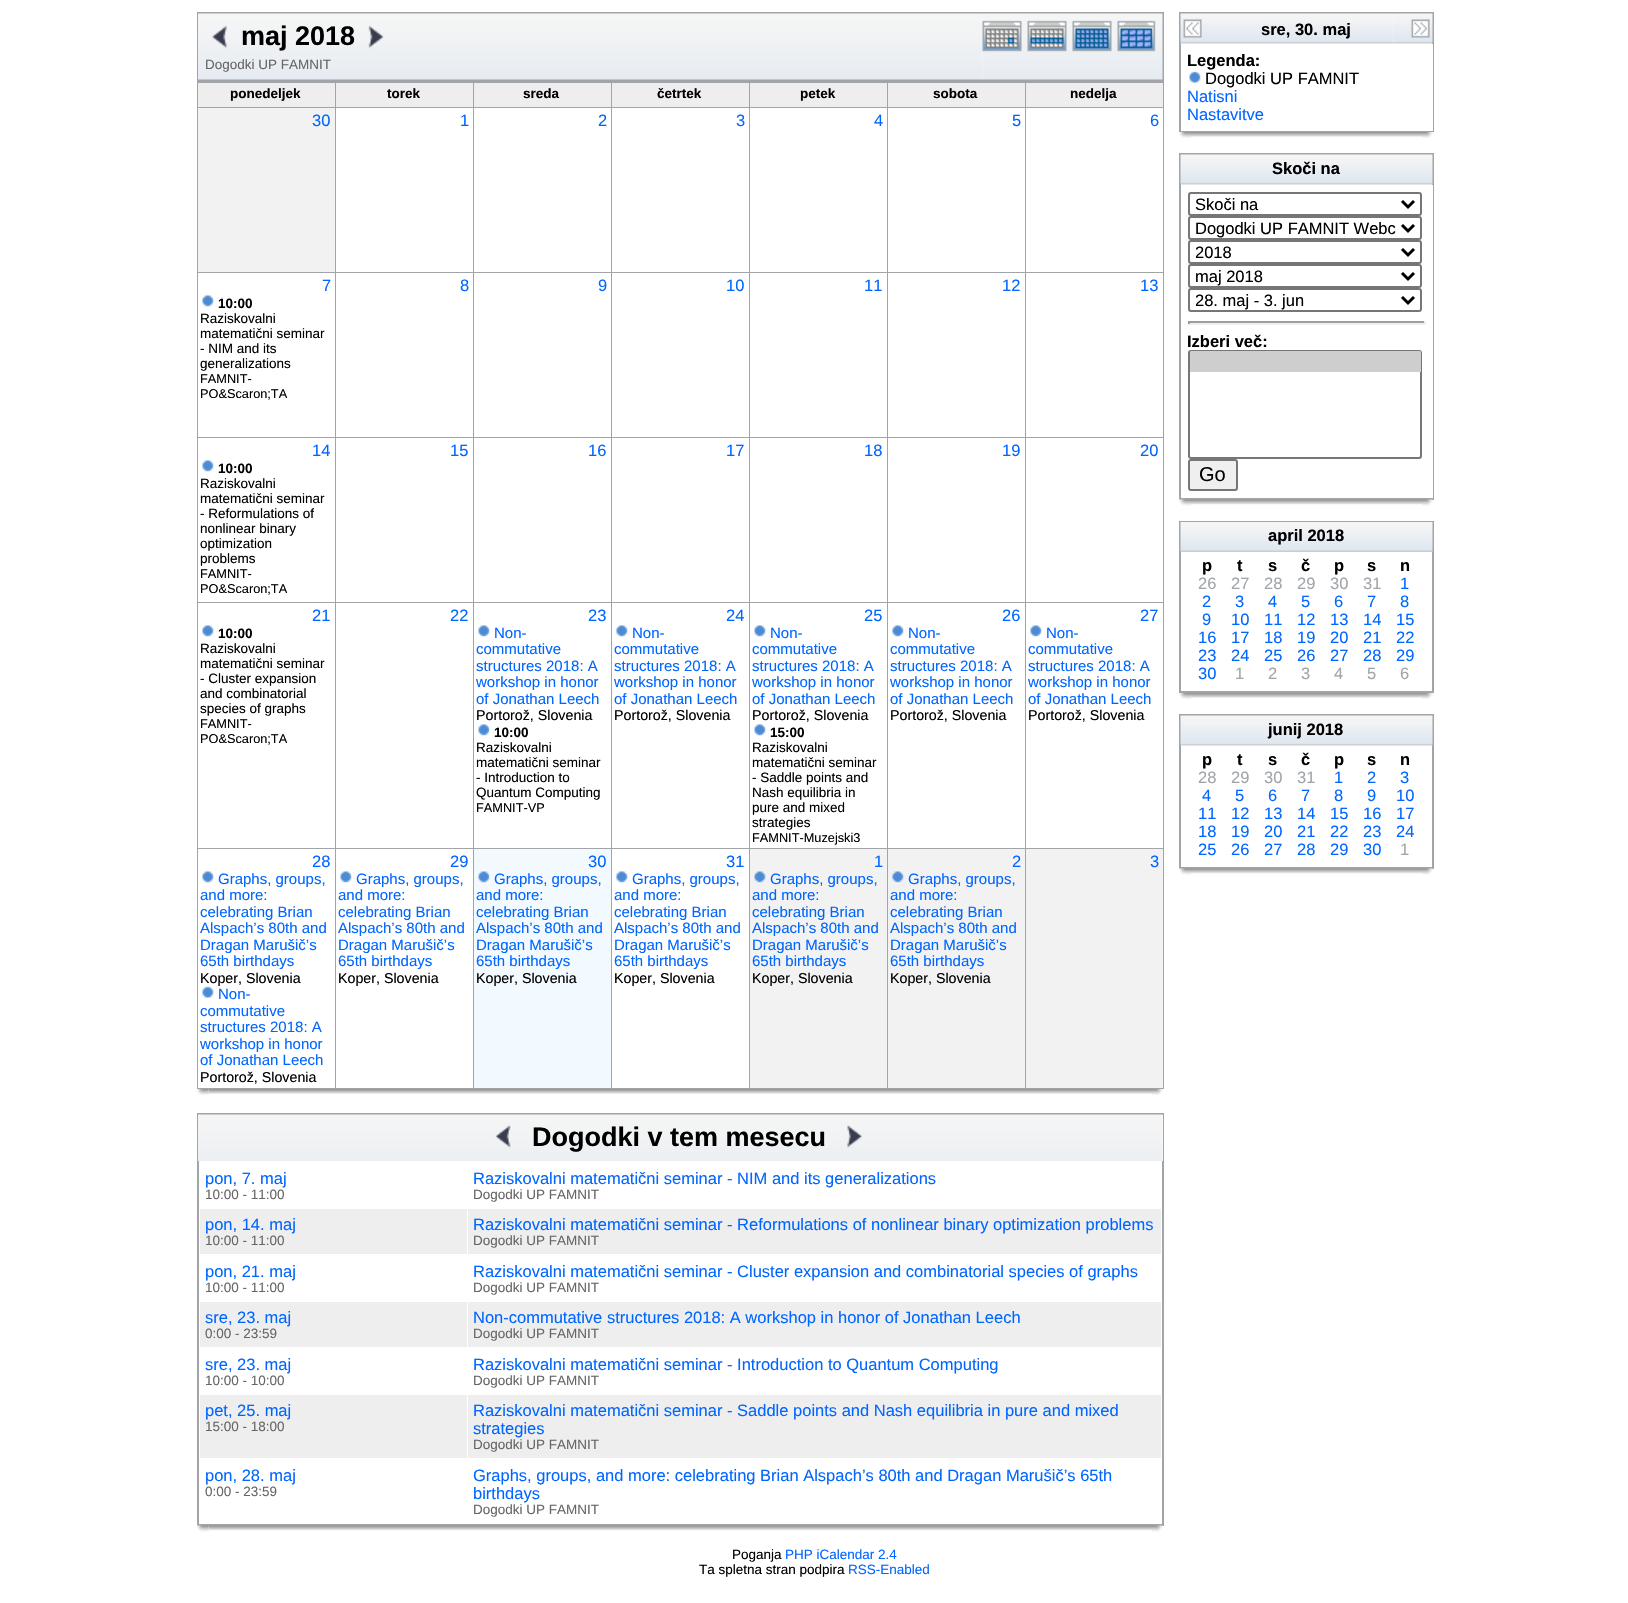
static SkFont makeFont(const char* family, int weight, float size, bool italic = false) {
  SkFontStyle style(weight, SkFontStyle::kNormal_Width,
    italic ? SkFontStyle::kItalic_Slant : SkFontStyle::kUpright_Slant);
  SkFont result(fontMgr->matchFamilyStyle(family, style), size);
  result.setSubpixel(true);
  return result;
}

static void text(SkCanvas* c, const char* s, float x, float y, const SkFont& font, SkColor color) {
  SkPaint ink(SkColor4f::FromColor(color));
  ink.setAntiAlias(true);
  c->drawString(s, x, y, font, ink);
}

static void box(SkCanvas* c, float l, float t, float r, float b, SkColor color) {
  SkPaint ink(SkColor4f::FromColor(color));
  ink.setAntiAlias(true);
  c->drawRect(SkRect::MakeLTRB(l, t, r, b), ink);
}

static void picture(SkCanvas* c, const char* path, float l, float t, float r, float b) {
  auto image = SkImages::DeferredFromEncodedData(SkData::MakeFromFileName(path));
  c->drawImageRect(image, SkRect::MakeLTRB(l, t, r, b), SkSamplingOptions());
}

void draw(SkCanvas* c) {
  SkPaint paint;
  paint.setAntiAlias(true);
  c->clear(0xffffffff);
  paint.setStyle(SkPaint::kStroke_Style);
  paint.setStrokeWidth(2);
  paint.setColor(0xffa1a5a9);
  c->drawRect(SkRect::MakeLTRB(198, 13, 1163, 80), paint);
  picture(c, "img_01.png", 198, 13, 983, 80);
  picture(c, "img_02.png", 211, 25, 227, 49);
  SkFont face1 = makeFont("Liberation Sans", 700, 27);
  text(c, "maj 2018", 241, 45, face1, 0xff000000);
  picture(c, "img_03.png", 368, 25, 384, 49);
  SkFont face2 = makeFont("Liberation Sans", 400, 13.5f);
  text(c, "Dogodki UP FAMNIT", 205, 69, face2, 0xff666666);
  picture(c, "img_04.png", 982, 13, 1163, 80);
  picture(c, "img_05.png", 982, 20, 1022, 52);
  picture(c, "img_06.png", 1027, 20, 1067, 52);
  picture(c, "img_07.png", 1072, 20, 1112, 52);
  picture(c, "img_08.png", 1117, 20, 1156, 52);
  box(c, 197, 81, 1164, 1089, 0xffa1a5a9);
  box(c, 198, 83, 335, 107, 0xffeeeeee);
  SkFont face3 = makeFont("Liberation Sans", 700, 13.5f);
  text(c, "ponedeljek", 230, 98, face3, 0xff000000);
  box(c, 336, 83, 473, 107, 0xffeeeeee);
  text(c, "torek", 387, 98, face3, 0xff000000);
  box(c, 474, 83, 611, 107, 0xffeeeeee);
  text(c, "sreda", 523, 98, face3, 0xff000000);
  box(c, 612, 83, 749, 107, 0xffeeeeee);
  text(c, "četrtek", 657, 98, face3, 0xff000000);
  box(c, 750, 83, 887, 107, 0xffeeeeee);
  text(c, "petek", 800, 98, face3, 0xff000000);
  box(c, 888, 83, 1025, 107, 0xffeeeeee);
  text(c, "sobota", 933, 98, face3, 0xff000000);
  box(c, 1026, 83, 1163, 107, 0xffeeeeee);
  text(c, "nedelja", 1070, 98, face3, 0xff000000);
  box(c, 198, 108, 335, 272, 0xfff2f2f2);
  SkFont face4 = makeFont("Liberation Sans", 400, 16.5f);
  text(c, "30", 312, 126, face4, 0xff0066ff);
  box(c, 336, 108, 473, 272, 0xffffffff);
  text(c, "1", 460, 126, face4, 0xff0066ff);
  box(c, 474, 108, 611, 272, 0xffffffff);
  text(c, "2", 598, 126, face4, 0xff0066ff);
  box(c, 612, 108, 749, 272, 0xffffffff);
  text(c, "3", 736, 126, face4, 0xff0066ff);
  box(c, 750, 108, 887, 272, 0xffffffff);
  text(c, "4", 874, 126, face4, 0xff0066ff);
  box(c, 888, 108, 1025, 272, 0xffffffff);
  text(c, "5", 1012, 126, face4, 0xff0066ff);
  box(c, 1026, 108, 1163, 272, 0xffffffff);
  text(c, "6", 1150, 126, face4, 0xff0066ff);
  box(c, 198, 273, 335, 437, 0xffffffff);
  text(c, "7", 322, 291, face4, 0xff0066ff);
  picture(c, "img_09.png", 202, 295, 214, 307);
  text(c, "10:00", 218, 308, face3, 0xff000000);
  text(c, "Raziskovalni", 200, 323, face2, 0xff000000);
  text(c, "matematični seminar", 200, 338, face2, 0xff000000);
  text(c, "- NIM and its", 200, 353, face2, 0xff000000);
  text(c, "generalizations", 200, 368, face2, 0xff000000);
  SkFont face5 = makeFont("Liberation Sans", 400, 12.75f);
  text(c, "FAMNIT-", 200, 383, face5, 0xff000000);
  text(c, "PO&Scaron;TA", 200, 398, face5, 0xff000000);
  box(c, 336, 273, 473, 437, 0xffffffff);
  text(c, "8", 460, 291, face4, 0xff0066ff);
  box(c, 474, 273, 611, 437, 0xffffffff);
  text(c, "9", 598, 291, face4, 0xff0066ff);
  box(c, 612, 273, 749, 437, 0xffffffff);
  text(c, "10", 726, 291, face4, 0xff0066ff);
  box(c, 750, 273, 887, 437, 0xffffffff);
  text(c, "11", 864, 291, face4, 0xff0066ff);
  box(c, 888, 273, 1025, 437, 0xffffffff);
  text(c, "12", 1002, 291, face4, 0xff0066ff);
  box(c, 1026, 273, 1163, 437, 0xffffffff);
  text(c, "13", 1140, 291, face4, 0xff0066ff);
  box(c, 198, 438, 335, 602, 0xffffffff);
  text(c, "14", 312, 456, face4, 0xff0066ff);
  picture(c, "img_09.png", 202, 460, 214, 472);
  text(c, "10:00", 218, 473, face3, 0xff000000);
  text(c, "Raziskovalni", 200, 488, face2, 0xff000000);
  text(c, "matematični seminar", 200, 503, face2, 0xff000000);
  text(c, "- Reformulations of", 200, 518, face2, 0xff000000);
  text(c, "nonlinear binary", 200, 533, face2, 0xff000000);
  text(c, "optimization", 200, 548, face2, 0xff000000);
  text(c, "problems", 200, 563, face2, 0xff000000);
  text(c, "FAMNIT-", 200, 578, face5, 0xff000000);
  text(c, "PO&Scaron;TA", 200, 593, face5, 0xff000000);
  box(c, 336, 438, 473, 602, 0xffffffff);
  text(c, "15", 450, 456, face4, 0xff0066ff);
  box(c, 474, 438, 611, 602, 0xffffffff);
  text(c, "16", 588, 456, face4, 0xff0066ff);
  box(c, 612, 438, 749, 602, 0xffffffff);
  text(c, "17", 726, 456, face4, 0xff0066ff);
  box(c, 750, 438, 887, 602, 0xffffffff);
  text(c, "18", 864, 456, face4, 0xff0066ff);
  box(c, 888, 438, 1025, 602, 0xffffffff);
  text(c, "19", 1002, 456, face4, 0xff0066ff);
  box(c, 1026, 438, 1163, 602, 0xffffffff);
  text(c, "20", 1140, 456, face4, 0xff0066ff);
  box(c, 198, 603, 335, 848, 0xffffffff);
  text(c, "21", 312, 621, face4, 0xff0066ff);
  picture(c, "img_09.png", 202, 625, 214, 637);
  text(c, "10:00", 218, 638, face3, 0xff000000);
  text(c, "Raziskovalni", 200, 653, face2, 0xff000000);
  text(c, "matematični seminar", 200, 668, face2, 0xff000000);
  text(c, "- Cluster expansion", 200, 683, face2, 0xff000000);
  text(c, "and combinatorial", 200, 698, face2, 0xff000000);
  text(c, "species of graphs", 200, 713, face2, 0xff000000);
  text(c, "FAMNIT-", 200, 728, face5, 0xff000000);
  text(c, "PO&Scaron;TA", 200, 743, face5, 0xff000000);
  box(c, 336, 603, 473, 848, 0xffffffff);
  text(c, "22", 450, 621, face4, 0xff0066ff);
  box(c, 474, 603, 611, 848, 0xffffffff);
  text(c, "23", 588, 621, face4, 0xff0066ff);
  picture(c, "img_10.png", 478, 625, 490, 637);
  SkFont face6 = makeFont("Liberation Sans", 400, 15);
  text(c, "Non-", 494, 638, face6, 0xff0066ff);
  text(c, "commutative", 476, 654, face6, 0xff0066ff);
  text(c, "structures 2018: A", 476, 671, face6, 0xff0066ff);
  text(c, "workshop in honor", 476, 687, face6, 0xff0066ff);
  text(c, "of Jonathan Leech", 476, 704, face6, 0xff0066ff);
  SkFont face7 = makeFont("Liberation Sans", 400, 14.25f);
  text(c, "Portorož, Slovenia", 476, 720, face7, 0xff000000);
  picture(c, "img_10.png", 478, 724, 490, 736);
  text(c, "10:00", 494, 737, face3, 0xff000000);
  text(c, "Raziskovalni", 476, 752, face2, 0xff000000);
  text(c, "matematični seminar", 476, 767, face2, 0xff000000);
  text(c, "- Introduction to", 476, 782, face2, 0xff000000);
  text(c, "Quantum Computing", 476, 797, face2, 0xff000000);
  text(c, "FAMNIT-VP", 476, 812, face5, 0xff000000);
  box(c, 612, 603, 749, 848, 0xffffffff);
  text(c, "24", 726, 621, face4, 0xff0066ff);
  picture(c, "img_09.png", 616, 625, 628, 637);
  text(c, "Non-", 632, 638, face6, 0xff0066ff);
  text(c, "commutative", 614, 654, face6, 0xff0066ff);
  text(c, "structures 2018: A", 614, 671, face6, 0xff0066ff);
  text(c, "workshop in honor", 614, 687, face6, 0xff0066ff);
  text(c, "of Jonathan Leech", 614, 704, face6, 0xff0066ff);
  text(c, "Portorož, Slovenia", 614, 720, face7, 0xff000000);
  box(c, 750, 603, 887, 848, 0xffffffff);
  text(c, "25", 864, 621, face4, 0xff0066ff);
  picture(c, "img_11.png", 754, 625, 766, 637);
  text(c, "Non-", 770, 638, face6, 0xff0066ff);
  text(c, "commutative", 752, 654, face6, 0xff0066ff);
  text(c, "structures 2018: A", 752, 671, face6, 0xff0066ff);
  text(c, "workshop in honor", 752, 687, face6, 0xff0066ff);
  text(c, "of Jonathan Leech", 752, 704, face6, 0xff0066ff);
  text(c, "Portorož, Slovenia", 752, 720, face7, 0xff000000);
  picture(c, "img_11.png", 754, 724, 766, 736);
  text(c, "15:00", 770, 737, face3, 0xff000000);
  text(c, "Raziskovalni", 752, 752, face2, 0xff000000);
  text(c, "matematični seminar", 752, 767, face2, 0xff000000);
  text(c, "- Saddle points and", 752, 782, face2, 0xff000000);
  text(c, "Nash equilibria in", 752, 797, face2, 0xff000000);
  text(c, "pure and mixed", 752, 812, face2, 0xff000000);
  text(c, "strategies", 752, 827, face2, 0xff000000);
  text(c, "FAMNIT-Muzejski3", 752, 842, face5, 0xff000000);
  box(c, 888, 603, 1025, 848, 0xffffffff);
  text(c, "26", 1002, 621, face4, 0xff0066ff);
  picture(c, "img_09.png", 892, 625, 904, 637);
  text(c, "Non-", 908, 638, face6, 0xff0066ff);
  text(c, "commutative", 890, 654, face6, 0xff0066ff);
  text(c, "structures 2018: A", 890, 671, face6, 0xff0066ff);
  text(c, "workshop in honor", 890, 687, face6, 0xff0066ff);
  text(c, "of Jonathan Leech", 890, 704, face6, 0xff0066ff);
  text(c, "Portorož, Slovenia", 890, 720, face7, 0xff000000);
  box(c, 1026, 603, 1163, 848, 0xffffffff);
  text(c, "27", 1140, 621, face4, 0xff0066ff);
  picture(c, "img_10.png", 1030, 625, 1042, 637);
  text(c, "Non-", 1046, 638, face6, 0xff0066ff);
  text(c, "commutative", 1028, 654, face6, 0xff0066ff);
  text(c, "structures 2018: A", 1028, 671, face6, 0xff0066ff);
  text(c, "workshop in honor", 1028, 687, face6, 0xff0066ff);
  text(c, "of Jonathan Leech", 1028, 704, face6, 0xff0066ff);
  text(c, "Portorož, Slovenia", 1028, 720, face7, 0xff000000);
  box(c, 198, 849, 335, 1088, 0xffffffff);
  text(c, "28", 312, 867, face4, 0xff0066ff);
  picture(c, "img_09.png", 202, 871, 214, 883);
  text(c, "Graphs, groups,", 218, 884, face6, 0xff0066ff);
  text(c, "and more:", 200, 900, face6, 0xff0066ff);
  text(c, "celebrating Brian", 200, 917, face6, 0xff0066ff);
  text(c, "Alspach’s 80th and", 200, 933, face6, 0xff0066ff);
  text(c, "Dragan Marušič’s", 200, 950, face6, 0xff0066ff);
  text(c, "65th birthdays", 200, 966, face6, 0xff0066ff);
  text(c, "Koper, Slovenia", 200, 983, face7, 0xff000000);
  picture(c, "img_12.png", 202, 986, 214, 998);
  text(c, "Non-", 218, 999, face6, 0xff0066ff);
  text(c, "commutative", 200, 1016, face6, 0xff0066ff);
  text(c, "structures 2018: A", 200, 1032, face6, 0xff0066ff);
  text(c, "workshop in honor", 200, 1049, face6, 0xff0066ff);
  text(c, "of Jonathan Leech", 200, 1065, face6, 0xff0066ff);
  text(c, "Portorož, Slovenia", 200, 1082, face7, 0xff000000);
  box(c, 336, 849, 473, 1088, 0xffffffff);
  text(c, "29", 450, 867, face4, 0xff0066ff);
  picture(c, "img_10.png", 340, 871, 352, 883);
  text(c, "Graphs, groups,", 356, 884, face6, 0xff0066ff);
  text(c, "and more:", 338, 900, face6, 0xff0066ff);
  text(c, "celebrating Brian", 338, 917, face6, 0xff0066ff);
  text(c, "Alspach’s 80th and", 338, 933, face6, 0xff0066ff);
  text(c, "Dragan Marušič’s", 338, 950, face6, 0xff0066ff);
  text(c, "65th birthdays", 338, 966, face6, 0xff0066ff);
  text(c, "Koper, Slovenia", 338, 983, face7, 0xff000000);
  box(c, 474, 849, 611, 1088, 0xfff2f9ff);
  text(c, "30", 588, 867, face4, 0xff0066ff);
  picture(c, "img_13.png", 478, 871, 490, 883);
  text(c, "Graphs, groups,", 494, 884, face6, 0xff0066ff);
  text(c, "and more:", 476, 900, face6, 0xff0066ff);
  text(c, "celebrating Brian", 476, 917, face6, 0xff0066ff);
  text(c, "Alspach’s 80th and", 476, 933, face6, 0xff0066ff);
  text(c, "Dragan Marušič’s", 476, 950, face6, 0xff0066ff);
  text(c, "65th birthdays", 476, 966, face6, 0xff0066ff);
  text(c, "Koper, Slovenia", 476, 983, face7, 0xff000000);
  box(c, 612, 849, 749, 1088, 0xffffffff);
  text(c, "31", 726, 867, face4, 0xff0066ff);
  picture(c, "img_09.png", 616, 871, 628, 883);
  text(c, "Graphs, groups,", 632, 884, face6, 0xff0066ff);
  text(c, "and more:", 614, 900, face6, 0xff0066ff);
  text(c, "celebrating Brian", 614, 917, face6, 0xff0066ff);
  text(c, "Alspach’s 80th and", 614, 933, face6, 0xff0066ff);
  text(c, "Dragan Marušič’s", 614, 950, face6, 0xff0066ff);
  text(c, "65th birthdays", 614, 966, face6, 0xff0066ff);
  text(c, "Koper, Slovenia", 614, 983, face7, 0xff000000);
  box(c, 750, 849, 887, 1088, 0xfff2f2f2);
  text(c, "1", 874, 867, face4, 0xff0066ff);
  picture(c, "img_14.png", 754, 871, 766, 883);
  text(c, "Graphs, groups,", 770, 884, face6, 0xff0066ff);
  text(c, "and more:", 752, 900, face6, 0xff0066ff);
  text(c, "celebrating Brian", 752, 917, face6, 0xff0066ff);
  text(c, "Alspach’s 80th and", 752, 933, face6, 0xff0066ff);
  text(c, "Dragan Marušič’s", 752, 950, face6, 0xff0066ff);
  text(c, "65th birthdays", 752, 966, face6, 0xff0066ff);
  text(c, "Koper, Slovenia", 752, 983, face7, 0xff000000);
  box(c, 888, 849, 1025, 1088, 0xfff2f2f2);
  text(c, "2", 1012, 867, face4, 0xff0066ff);
  picture(c, "img_15.png", 892, 871, 904, 883);
  text(c, "Graphs, groups,", 908, 884, face6, 0xff0066ff);
  text(c, "and more:", 890, 900, face6, 0xff0066ff);
  text(c, "celebrating Brian", 890, 917, face6, 0xff0066ff);
  text(c, "Alspach’s 80th and", 890, 933, face6, 0xff0066ff);
  text(c, "Dragan Marušič’s", 890, 950, face6, 0xff0066ff);
  text(c, "65th birthdays", 890, 966, face6, 0xff0066ff);
  text(c, "Koper, Slovenia", 890, 983, face7, 0xff000000);
  box(c, 1026, 849, 1163, 1088, 0xfff2f2f2);
  text(c, "3", 1150, 867, face4, 0xff0066ff);
  picture(c, "img_16.png", 196, 1089, 209, 1095);
  picture(c, "img_17.png", 208, 1089, 1152, 1094);
  picture(c, "img_18.png", 1152, 1089, 1163, 1095);
  c->drawRect(SkRect::MakeLTRB(198, 1114, 1163, 1525), paint);
  box(c, 1162, 1115, 1163, 1161, 0xffffffff);
  picture(c, "img_19.png", 198, 1114, 525, 1161);
  picture(c, "img_20.png", 495, 1125, 511, 1148);
  picture(c, "img_21.png", 525, 1114, 834, 1161);
  text(c, "Dogodki v tem mesecu", 532, 1146, face1, 0xff000000);
  picture(c, "img_22.png", 834, 1114, 1163, 1161);
  picture(c, "img_23.png", 847, 1125, 863, 1148);
  text(c, "pon, 7. maj", 205, 1184, face4, 0xff0066ff);
  text(c, "10:00 - 11:00", 205, 1199, face2, 0xff666666);
  text(c, "Raziskovalni matematični seminar - NIM and its generalizations", 473, 1184, face4, 0xff0066ff);
  text(c, "Dogodki UP FAMNIT", 473, 1199, face2, 0xff666666);
  box(c, 200, 1209, 467, 1254, 0xffeeeeee);
  text(c, "pon, 14. maj", 205, 1230, face4, 0xff0066ff);
  text(c, "10:00 - 11:00", 205, 1245, face2, 0xff666666);
  box(c, 468, 1209, 1161, 1254, 0xffeeeeee);
  text(c, "Raziskovalni matematični seminar - Reformulations of nonlinear binary optimization problems", 473, 1230, face4, 0xff0066ff);
  text(c, "Dogodki UP FAMNIT", 473, 1245, face2, 0xff666666);
  text(c, "pon, 21. maj", 205, 1277, face4, 0xff0066ff);
  text(c, "10:00 - 11:00", 205, 1292, face2, 0xff666666);
  text(c, "Raziskovalni matematični seminar - Cluster expansion and combinatorial species of graphs", 473, 1277, face4, 0xff0066ff);
  text(c, "Dogodki UP FAMNIT", 473, 1292, face2, 0xff666666);
  box(c, 200, 1302, 467, 1347, 0xffeeeeee);
  text(c, "sre, 23. maj", 205, 1323, face4, 0xff0066ff);
  text(c, "0:00 - 23:59", 205, 1338, face2, 0xff666666);
  box(c, 468, 1302, 1161, 1347, 0xffeeeeee);
  text(c, "Non-commutative structures 2018: A workshop in honor of Jonathan Leech", 473, 1323, face4, 0xff0066ff);
  text(c, "Dogodki UP FAMNIT", 473, 1338, face2, 0xff666666);
  text(c, "sre, 23. maj", 205, 1370, face4, 0xff0066ff);
  text(c, "10:00 - 10:00", 205, 1385, face2, 0xff666666);
  text(c, "Raziskovalni matematični seminar - Introduction to Quantum Computing", 473, 1370, face4, 0xff0066ff);
  text(c, "Dogodki UP FAMNIT", 473, 1385, face2, 0xff666666);
  box(c, 200, 1395, 467, 1458, 0xffeeeeee);
  text(c, "pet, 25. maj", 205, 1416, face4, 0xff0066ff);
  text(c, "15:00 - 18:00", 205, 1431, face2, 0xff666666);
  box(c, 468, 1395, 1161, 1458, 0xffeeeeee);
  text(c, "Raziskovalni matematični seminar - Saddle points and Nash equilibria in pure and mixed", 473, 1416, face4, 0xff0066ff);
  text(c, "strategies", 473, 1434, face4, 0xff0066ff);
  text(c, "Dogodki UP FAMNIT", 473, 1449, face2, 0xff666666);
  text(c, "pon, 28. maj", 205, 1481, face4, 0xff0066ff);
  text(c, "0:00 - 23:59", 205, 1496, face2, 0xff666666);
  text(c, "Graphs, groups, and more: celebrating Brian Alspach’s 80th and Dragan Marušič’s 65th", 473, 1481, face4, 0xff0066ff);
  text(c, "birthdays", 473, 1499, face4, 0xff0066ff);
  text(c, "Dogodki UP FAMNIT", 473, 1514, face2, 0xff666666);
  picture(c, "img_24.png", 196, 1525, 209, 1532);
  picture(c, "img_25.png", 208, 1525, 1152, 1531);
  picture(c, "img_26.png", 1152, 1525, 1163, 1532);
  c->drawRect(SkRect::MakeLTRB(1180, 13, 1433, 131), paint);
  picture(c, "img_27.png", 1180, 13, 1218, 44);
  picture(c, "img_28.png", 1183, 19, 1202, 38);
  picture(c, "img_29.png", 1218, 13, 1394, 44);
  SkFont face8 = makeFont("Liberation Sans", 700, 16.5f);
  text(c, "sre, 30. maj", 1261, 35, face8, 0xff000000);
  picture(c, "img_30.png", 1393, 13, 1433, 44);
  picture(c, "img_31.png", 1411, 19, 1430, 38);
  box(c, 1181, 44, 1433, 131, 0xffffffff);
  text(c, "Legenda:", 1187, 66, face8, 0xff000000);
  picture(c, "img_32.png", 1189, 71, 1201, 83);
  text(c, "Dogodki UP FAMNIT", 1205, 84, face4, 0xff000000);
  text(c, "Natisni", 1187, 102, face4, 0xff0066ff);
  text(c, "Nastavitve", 1187, 120, face4, 0xff0066ff);
  picture(c, "img_33.png", 1179, 132, 1191, 138);
  picture(c, "img_34.png", 1191, 132, 1422, 137);
  picture(c, "img_35.png", 1422, 132, 1433, 138);
  c->drawRect(SkRect::MakeLTRB(1180, 154, 1433, 499), paint);
  picture(c, "img_36.png", 1180, 154, 1433, 185);
  text(c, "Skoči na", 1272, 174, face8, 0xff000000);
  box(c, 1432, 185, 1433, 498, 0xffffffff);
  paint.setColor(0xff767676);
  c->drawRoundRect(SkRect::MakeLTRB(1189, 193, 1421, 215), 2, 2, paint);
  paint.setStrokeWidth(3);
  paint.setColor(0xff000000);
  c->drawPath(SkPathBuilder().moveTo(1402, 201).lineTo(1408, 207).lineTo(1414, 201).detach(), paint);
  text(c, "Skoči na", 1195, 210, face4, 0xff000000);
  paint.setStrokeWidth(2);
  paint.setColor(0xff767676);
  c->drawRoundRect(SkRect::MakeLTRB(1189, 217, 1421, 239), 2, 2, paint);
  paint.setStrokeWidth(3);
  paint.setColor(0xff000000);
  c->drawPath(SkPathBuilder().moveTo(1402, 225).lineTo(1408, 231).lineTo(1414, 225).detach(), paint);
  text(c, "Dogodki UP FAMNIT Webc", 1195, 234, face4, 0xff000000);
  paint.setStrokeWidth(2);
  paint.setColor(0xff767676);
  c->drawRoundRect(SkRect::MakeLTRB(1189, 241, 1421, 263), 2, 2, paint);
  paint.setStrokeWidth(3);
  paint.setColor(0xff000000);
  c->drawPath(SkPathBuilder().moveTo(1402, 249).lineTo(1408, 255).lineTo(1414, 249).detach(), paint);
  c->save();
  c->clipRect(SkRect::MakeLTRB(1196, 242, 1397, 263));
  text(c, "2018", 1195, 258, face4, 0xff000000);
  c->restore();
  paint.setStrokeWidth(2);
  paint.setColor(0xff767676);
  c->drawRoundRect(SkRect::MakeLTRB(1189, 265, 1421, 287), 2, 2, paint);
  paint.setStrokeWidth(3);
  paint.setColor(0xff000000);
  c->drawPath(SkPathBuilder().moveTo(1402, 273).lineTo(1408, 279).lineTo(1414, 273).detach(), paint);
  c->save();
  c->clipRect(SkRect::MakeLTRB(1196, 266, 1397, 287));
  text(c, "maj 2018", 1195, 282, face4, 0xff000000);
  c->restore();
  paint.setStrokeWidth(2);
  paint.setColor(0xff767676);
  c->drawRoundRect(SkRect::MakeLTRB(1189, 289, 1421, 311), 2, 2, paint);
  paint.setStrokeWidth(3);
  paint.setColor(0xff000000);
  c->drawPath(SkPathBuilder().moveTo(1402, 297).lineTo(1408, 303).lineTo(1414, 297).detach(), paint);
  c->save();
  c->clipRect(SkRect::MakeLTRB(1196, 290, 1397, 311));
  text(c, "28. maj - 3. jun", 1195, 306, face4, 0xff000000);
  c->restore();
  box(c, 1188, 321, 1425, 323, 0xff9f9f9f);
  box(c, 1424, 321, 1426, 324, 0xffeeeeee);
  box(c, 1188, 323, 1425, 325, 0xffeeeeee);
  box(c, 1188, 321, 1190, 324, 0xff9f9f9f);
  text(c, "Izberi več:", 1187, 347, face8, 0xff000000);
  paint.setStrokeWidth(2);
  paint.setColor(0xff767676);
  c->drawRoundRect(SkRect::MakeLTRB(1189, 351, 1421, 458), 2, 2, paint);
  paint.setStyle(SkPaint::kFill_Style);
  paint.setColor(0xffcecece);
  c->drawPath(SkPathBuilder().moveTo(1191.5f, 351).lineTo(1419.5f, 351).cubicTo(1420.5f, 351, 1421, 351.5f, 1421, 352.5f).lineTo(1421, 372).lineTo(1190, 372).lineTo(1190, 352.5f).cubicTo(1190, 351.5f, 1190.5f, 351, 1191.5f, 351).close().detach(), paint);
  paint.setColor(0xffefefef);
  c->drawRoundRect(SkRect::MakeLTRB(1189, 460, 1237, 490), 2, 2, paint);
  paint.setStyle(SkPaint::kStroke_Style);
  paint.setColor(0xff767676);
  c->drawRoundRect(SkRect::MakeLTRB(1189, 460, 1237, 490), 2, 2, paint);
  SkFont face9 = makeFont("Liberation Sans", 400, 20);
  text(c, "Go", 1199, 481, face9, 0xff000000);
  picture(c, "img_37.png", 1179, 499, 1191, 506);
  picture(c, "img_38.png", 1191, 499, 1422, 505);
  picture(c, "img_39.png", 1422, 499, 1433, 506);
  paint.setColor(0xffa1a5a9);
  c->drawRect(SkRect::MakeLTRB(1180, 522, 1433, 692), paint);
  picture(c, "img_40.png", 1180, 522, 1433, 552);
  text(c, "april 2018", 1268, 541, face8, 0xff000000);
  text(c, "p", 1202, 571, face8, 0xff000000);
  text(c, "t", 1237, 571, face8, 0xff000000);
  text(c, "s", 1268, 571, face8, 0xff000000);
  text(c, "č", 1301, 571, face8, 0xff000000);
  text(c, "p", 1334, 571, face8, 0xff000000);
  text(c, "s", 1367, 571, face8, 0xff000000);
  text(c, "n", 1400, 571, face8, 0xff000000);
  text(c, "26", 1198, 589, face4, 0xffa1a5a9);
  text(c, "27", 1231, 589, face4, 0xffa1a5a9);
  text(c, "28", 1264, 589, face4, 0xffa1a5a9);
  text(c, "29", 1297, 589, face4, 0xffa1a5a9);
  text(c, "30", 1330, 589, face4, 0xffa1a5a9);
  text(c, "31", 1363, 589, face4, 0xffa1a5a9);
  text(c, "1", 1400, 589, face4, 0xff0066ff);
  text(c, "2", 1202, 607, face4, 0xff0066ff);
  text(c, "3", 1235, 607, face4, 0xff0066ff);
  text(c, "4", 1268, 607, face4, 0xff0066ff);
  text(c, "5", 1301, 607, face4, 0xff0066ff);
  text(c, "6", 1334, 607, face4, 0xff0066ff);
  text(c, "7", 1367, 607, face4, 0xff0066ff);
  text(c, "8", 1400, 607, face4, 0xff0066ff);
  text(c, "9", 1202, 625, face4, 0xff0066ff);
  text(c, "10", 1231, 625, face4, 0xff0066ff);
  text(c, "11", 1264, 625, face4, 0xff0066ff);
  text(c, "12", 1297, 625, face4, 0xff0066ff);
  text(c, "13", 1330, 625, face4, 0xff0066ff);
  text(c, "14", 1363, 625, face4, 0xff0066ff);
  text(c, "15", 1396, 625, face4, 0xff0066ff);
  text(c, "16", 1198, 643, face4, 0xff0066ff);
  text(c, "17", 1231, 643, face4, 0xff0066ff);
  text(c, "18", 1264, 643, face4, 0xff0066ff);
  text(c, "19", 1297, 643, face4, 0xff0066ff);
  text(c, "20", 1330, 643, face4, 0xff0066ff);
  text(c, "21", 1363, 643, face4, 0xff0066ff);
  text(c, "22", 1396, 643, face4, 0xff0066ff);
  text(c, "23", 1198, 661, face4, 0xff0066ff);
  text(c, "24", 1231, 661, face4, 0xff0066ff);
  text(c, "25", 1264, 661, face4, 0xff0066ff);
  text(c, "26", 1297, 661, face4, 0xff0066ff);
  text(c, "27", 1330, 661, face4, 0xff0066ff);
  text(c, "28", 1363, 661, face4, 0xff0066ff);
  text(c, "29", 1396, 661, face4, 0xff0066ff);
  text(c, "30", 1198, 679, face4, 0xff0066ff);
  text(c, "1", 1235, 679, face4, 0xffa1a5a9);
  text(c, "2", 1268, 679, face4, 0xffa1a5a9);
  text(c, "3", 1301, 679, face4, 0xffa1a5a9);
  text(c, "4", 1334, 679, face4, 0xffa1a5a9);
  text(c, "5", 1367, 679, face4, 0xffa1a5a9);
  text(c, "6", 1400, 679, face4, 0xffa1a5a9);
  picture(c, "img_33.png", 1179, 693, 1191, 699);
  picture(c, "img_34.png", 1191, 693, 1422, 698);
  picture(c, "img_35.png", 1422, 693, 1433, 699);
  c->drawRect(SkRect::MakeLTRB(1180, 715, 1433, 868), paint);
  picture(c, "img_41.png", 1180, 715, 1433, 746);
  text(c, "junij 2018", 1268, 735, face8, 0xff000000);
  text(c, "p", 1202, 765, face8, 0xff000000);
  text(c, "t", 1237, 765, face8, 0xff000000);
  text(c, "s", 1268, 765, face8, 0xff000000);
  text(c, "č", 1301, 765, face8, 0xff000000);
  text(c, "p", 1334, 765, face8, 0xff000000);
  text(c, "s", 1367, 765, face8, 0xff000000);
  text(c, "n", 1400, 765, face8, 0xff000000);
  text(c, "28", 1198, 783, face4, 0xffa1a5a9);
  text(c, "29", 1231, 783, face4, 0xffa1a5a9);
  text(c, "30", 1264, 783, face4, 0xffa1a5a9);
  text(c, "31", 1297, 783, face4, 0xffa1a5a9);
  text(c, "1", 1334, 783, face4, 0xff0066ff);
  text(c, "2", 1367, 783, face4, 0xff0066ff);
  text(c, "3", 1400, 783, face4, 0xff0066ff);
  text(c, "4", 1202, 801, face4, 0xff0066ff);
  text(c, "5", 1235, 801, face4, 0xff0066ff);
  text(c, "6", 1268, 801, face4, 0xff0066ff);
  text(c, "7", 1301, 801, face4, 0xff0066ff);
  text(c, "8", 1334, 801, face4, 0xff0066ff);
  text(c, "9", 1367, 801, face4, 0xff0066ff);
  text(c, "10", 1396, 801, face4, 0xff0066ff);
  text(c, "11", 1198, 819, face4, 0xff0066ff);
  text(c, "12", 1231, 819, face4, 0xff0066ff);
  text(c, "13", 1264, 819, face4, 0xff0066ff);
  text(c, "14", 1297, 819, face4, 0xff0066ff);
  text(c, "15", 1330, 819, face4, 0xff0066ff);
  text(c, "16", 1363, 819, face4, 0xff0066ff);
  text(c, "17", 1396, 819, face4, 0xff0066ff);
  text(c, "18", 1198, 837, face4, 0xff0066ff);
  text(c, "19", 1231, 837, face4, 0xff0066ff);
  text(c, "20", 1264, 837, face4, 0xff0066ff);
  text(c, "21", 1297, 837, face4, 0xff0066ff);
  text(c, "22", 1330, 837, face4, 0xff0066ff);
  text(c, "23", 1363, 837, face4, 0xff0066ff);
  text(c, "24", 1396, 837, face4, 0xff0066ff);
  text(c, "25", 1198, 855, face4, 0xff0066ff);
  text(c, "26", 1231, 855, face4, 0xff0066ff);
  text(c, "27", 1264, 855, face4, 0xff0066ff);
  text(c, "28", 1297, 855, face4, 0xff0066ff);
  text(c, "29", 1330, 855, face4, 0xff0066ff);
  text(c, "30", 1363, 855, face4, 0xff0066ff);
  text(c, "1", 1400, 855, face4, 0xffa1a5a9);
  picture(c, "img_37.png", 1179, 868, 1191, 875);
  picture(c, "img_42.png", 1191, 868, 1422, 874);
  picture(c, "img_39.png", 1422, 868, 1433, 875);
  text(c, "Poganja", 732, 1559, face2, 0xff000000);
  text(c, "PHP iCalendar 2.4", 785, 1559, face2, 0xff0066ff);
  text(c, "Ta spletna stran podpira", 699, 1574, face2, 0xff000000);
  text(c, "RSS-Enabled", 848, 1574, face2, 0xff0066ff);
}
